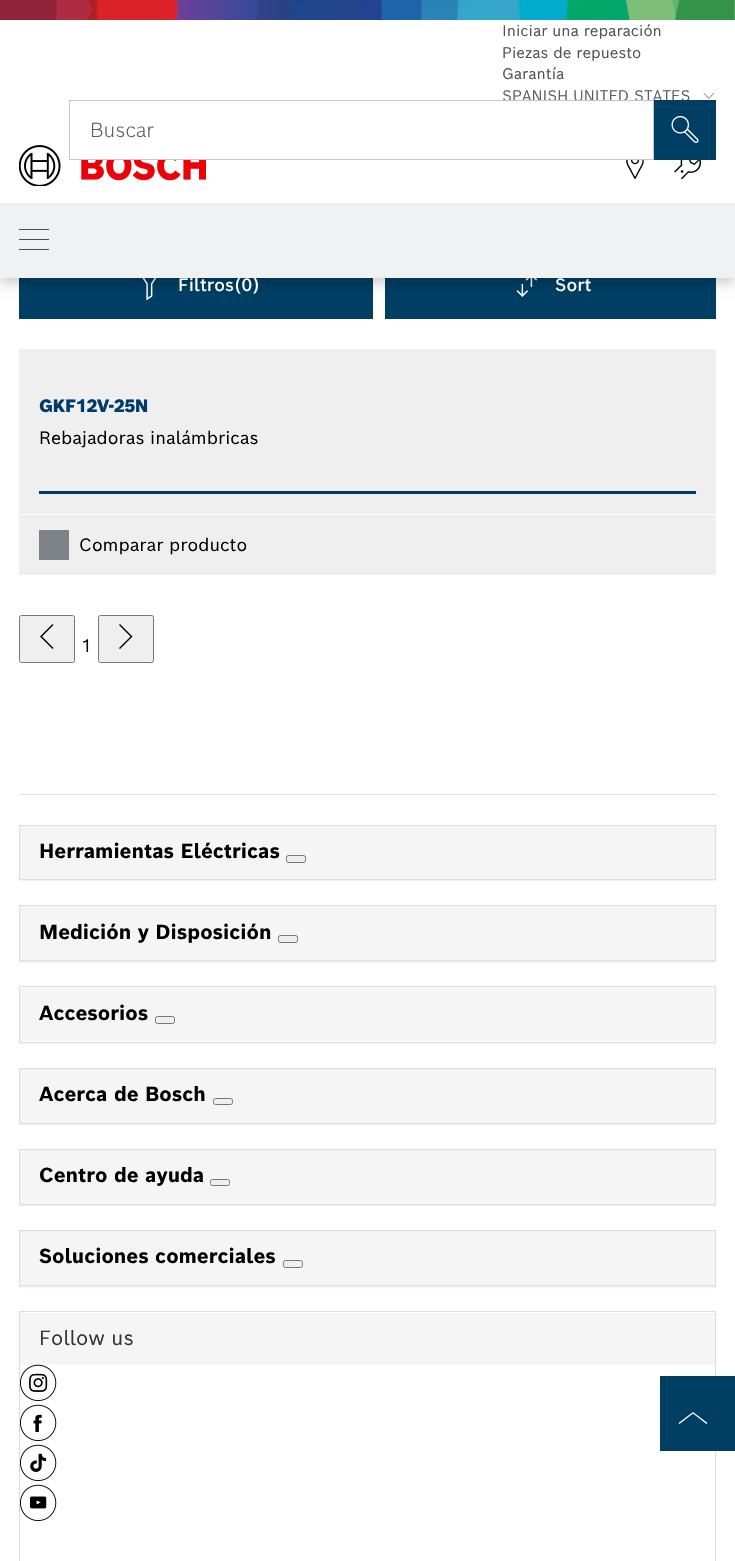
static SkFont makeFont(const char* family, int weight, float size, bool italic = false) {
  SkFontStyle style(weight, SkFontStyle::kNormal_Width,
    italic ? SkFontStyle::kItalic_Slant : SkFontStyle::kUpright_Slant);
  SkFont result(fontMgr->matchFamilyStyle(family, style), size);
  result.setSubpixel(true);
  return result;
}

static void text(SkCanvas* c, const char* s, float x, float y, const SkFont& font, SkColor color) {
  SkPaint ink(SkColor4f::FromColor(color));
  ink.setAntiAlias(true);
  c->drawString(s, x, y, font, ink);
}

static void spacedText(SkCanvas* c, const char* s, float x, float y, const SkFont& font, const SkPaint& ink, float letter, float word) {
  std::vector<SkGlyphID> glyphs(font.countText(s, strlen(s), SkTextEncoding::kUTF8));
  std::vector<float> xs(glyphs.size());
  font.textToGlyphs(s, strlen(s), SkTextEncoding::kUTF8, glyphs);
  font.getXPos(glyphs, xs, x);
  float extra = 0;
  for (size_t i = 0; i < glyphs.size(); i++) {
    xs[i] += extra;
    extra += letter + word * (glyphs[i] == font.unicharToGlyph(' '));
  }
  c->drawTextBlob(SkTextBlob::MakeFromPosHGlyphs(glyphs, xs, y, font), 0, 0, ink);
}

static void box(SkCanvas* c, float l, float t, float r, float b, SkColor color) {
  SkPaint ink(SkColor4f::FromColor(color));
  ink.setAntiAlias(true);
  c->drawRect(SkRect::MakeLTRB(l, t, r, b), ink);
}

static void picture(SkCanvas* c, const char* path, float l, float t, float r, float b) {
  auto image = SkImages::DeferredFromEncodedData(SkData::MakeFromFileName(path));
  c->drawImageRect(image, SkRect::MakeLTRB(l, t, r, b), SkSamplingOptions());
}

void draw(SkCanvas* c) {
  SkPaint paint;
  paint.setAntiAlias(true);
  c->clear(0xffffffff);
  box(c, 19, 278, 373, 319, 0xff003e64);
  picture(c, "img_07.png", 142, 278, 157, 301);
  box(c, 385, 278, 716, 319, 0xff003e64);
  picture(c, "img_08.png", 516, 278, 538, 297);
  paint.setColor(0x33000000);
  paint.setMaskFilter(SkMaskFilter::MakeBlur(kNormal_SkBlurStyle, 6));
  c->drawRect(SkRect::MakeLTRB(0, 25, 735, 283), paint);
  paint.setMaskFilter(nullptr);
  picture(c, "img_01.png", 0, 0, 735, 20);
  box(c, 0, 20, 735, 203, 0xffffffff);
  SkFont face1 = makeFont("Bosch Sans", 400, 15);
  text(c, "Iniciar una reparación", 502, 36, face1, 0xff4e5256);
  text(c, "Piezas de repuesto", 502, 58, face1, 0xff4e5256);
  text(c, "Garantía", 502, 79, face1, 0xff4e5256);
  text(c, "SPANISH UNITED STATES", 502, 101, face1, 0xff525f6b);
  picture(c, "img_02.png", 703, 93, 714, 99);
  picture(c, "img_04.png", 19, 145, 206, 186);
  box(c, 81, 101, 640, 159, 0xffffffff);
  paint.setStyle(SkPaint::kStroke_Style);
  paint.setStrokeWidth(1);
  paint.setColor(0xffc1c7cc);
  c->drawRect(SkRect::MakeLTRB(69.5f, 100.5f, 653.5f, 159.5f), paint);
  SkFont face2 = makeFont("Bosch Sans", 300, 20);
  text(c, "Buscar", 90, 137, face2, 0xff595e62);
  box(c, 654, 100, 716, 160, 0xff003e64);
  picture(c, "img_03.png", 671, 116, 699, 143);
  picture(c, "img_05.png", 626, 160, 644, 179);
  picture(c, "img_06.png", 674, 160, 702, 180);
  SkFont face3 = makeFont("Bosch Sans", 500, 17.5f);
  text(c, "Filtros(0)", 178, 291, face3, 0xffffffff);
  box(c, 0, 203, 735, 278, 0xffeff1f2);
  box(c, 19, 229, 49, 230, 0xff4d4d4d);
  box(c, 19, 239, 49, 240, 0xff4d4d4d);
  box(c, 19, 249, 49, 250, 0xff4d4d4d);
  text(c, "Sort", 555, 291, face3, 0xffffffff);
  box(c, 19, 349, 716, 575, 0xffefeff0);
  box(c, 39, 491, 696, 494, 0xff003b6a);
  SkFont face4 = makeFont("Bosch Sans", 900, 17.5f);
  paint.setStyle(SkPaint::kFill_Style);
  paint.setColor(0xff003b6a);
  spacedText(c, "GKF12V-25N", 39, 412, face4, paint, -0.5f, 0);
  SkFont face5 = makeFont("Bosch Sans", 400, 17.5f);
  text(c, "Rebajadoras inalámbricas", 39, 444, face5, 0xff000000);
  box(c, 19, 514, 716, 515, 0xffffffff);
  box(c, 39, 530, 69, 560, 0xff7d8389);
  text(c, "Comparar producto", 79, 551, face5, 0xff000000);
  paint.setColor(0xffefefef);
  c->drawRoundRect(SkRect::MakeLTRB(19.5f, 615.5f, 74.5f, 662.5f), 2, 2, paint);
  paint.setStyle(SkPaint::kStroke_Style);
  paint.setColor(0xff767676);
  c->drawRoundRect(SkRect::MakeLTRB(19.5f, 615.5f, 74.5f, 662.5f), 2, 2, paint);
  paint.setStyle(SkPaint::kFill_Style);
  paint.setColor(0xff000000);
  c->drawPath(SkPathBuilder().moveTo(53.5f, 625).lineTo(52.5f, 624).lineTo(40, 636.5f).lineTo(52.5f, 649).lineTo(53.5f, 648).lineTo(42, 636.5f).close().detach(), paint);
  text(c, "1", 81, 652, face5, 0xff000000);
  paint.setColor(0xffefefef);
  c->drawRoundRect(SkRect::MakeLTRB(98.5f, 615.5f, 153.5f, 662.5f), 2, 2, paint);
  paint.setStyle(SkPaint::kStroke_Style);
  paint.setColor(0xff767676);
  c->drawRoundRect(SkRect::MakeLTRB(98.5f, 615.5f, 153.5f, 662.5f), 2, 2, paint);
  paint.setStyle(SkPaint::kFill_Style);
  paint.setColor(0xff000000);
  c->drawPath(SkPathBuilder().moveTo(120, 624).lineTo(132.5f, 636.5f).lineTo(120, 649).lineTo(119, 648).lineTo(130.5f, 636.5f).lineTo(119, 625).close().detach(), paint);
  box(c, 19, 794, 716, 795, 0xffdfdfe0);
  paint.setColor(0x0d000000);
  paint.setMaskFilter(SkMaskFilter::MakeBlur(kNormal_SkBlurStyle, 0.5f));
  c->drawRect(SkRect::MakeLTRB(19, 826, 716, 881), paint);
  paint.setMaskFilter(nullptr);
  paint.setStyle(SkPaint::kStroke_Style);
  paint.setColor(0xffdddddd);
  c->drawRect(SkRect::MakeLTRB(19.5f, 825.5f, 715.5f, 879.5f), paint);
  box(c, 20, 827, 715, 879, 0xfff5f5f5);
  SkFont face6 = makeFont("Bosch Sans", 700, 20);
  text(c, "Herramientas Eléctricas", 39, 858, face6, 0xff000000);
  paint.setStyle(SkPaint::kFill_Style);
  paint.setColor(0xffefefef);
  c->drawRoundRect(SkRect::MakeLTRB(286.5f, 855.5f, 305.5f, 862.5f), 2, 2, paint);
  paint.setStyle(SkPaint::kStroke_Style);
  paint.setColor(0xff767676);
  c->drawRoundRect(SkRect::MakeLTRB(286.5f, 855.5f, 305.5f, 862.5f), 2, 2, paint);
  paint.setStyle(SkPaint::kFill_Style);
  paint.setColor(0x0d000000);
  paint.setMaskFilter(SkMaskFilter::MakeBlur(kNormal_SkBlurStyle, 0.5f));
  c->drawRect(SkRect::MakeLTRB(19, 906, 716, 963), paint);
  paint.setMaskFilter(nullptr);
  paint.setStyle(SkPaint::kStroke_Style);
  paint.setColor(0xffdddddd);
  c->drawRect(SkRect::MakeLTRB(19.5f, 905.5f, 715.5f, 960.5f), paint);
  box(c, 20, 907, 715, 960, 0xfff5f5f5);
  text(c, "Medición y Disposición", 39, 939, face6, 0xff000000);
  paint.setStyle(SkPaint::kFill_Style);
  paint.setColor(0xffefefef);
  c->drawRoundRect(SkRect::MakeLTRB(278.5f, 935.5f, 297.5f, 942.5f), 2, 2, paint);
  paint.setStyle(SkPaint::kStroke_Style);
  paint.setColor(0xff767676);
  c->drawRoundRect(SkRect::MakeLTRB(278.5f, 935.5f, 297.5f, 942.5f), 2, 2, paint);
  paint.setStyle(SkPaint::kFill_Style);
  paint.setColor(0x0d000000);
  paint.setMaskFilter(SkMaskFilter::MakeBlur(kNormal_SkBlurStyle, 0.5f));
  c->drawRect(SkRect::MakeLTRB(19, 988, 716, 1044), paint);
  paint.setMaskFilter(nullptr);
  box(c, 20, 988, 715, 1042, 0xffffffff);
  paint.setStyle(SkPaint::kStroke_Style);
  paint.setColor(0xffdddddd);
  c->drawRect(SkRect::MakeLTRB(19.5f, 986.5f, 715.5f, 1042.5f), paint);
  box(c, 20, 988, 715, 1041, 0xfff5f5f5);
  text(c, "Accesorios", 39, 1020, face6, 0xff000000);
  paint.setStyle(SkPaint::kFill_Style);
  paint.setColor(0xffefefef);
  c->drawRoundRect(SkRect::MakeLTRB(155.5f, 1016.5f, 174.5f, 1023.5f), 2, 2, paint);
  paint.setStyle(SkPaint::kStroke_Style);
  paint.setColor(0xff767676);
  c->drawRoundRect(SkRect::MakeLTRB(155.5f, 1016.5f, 174.5f, 1023.5f), 2, 2, paint);
  paint.setStyle(SkPaint::kFill_Style);
  paint.setColor(0x0d000000);
  paint.setMaskFilter(SkMaskFilter::MakeBlur(kNormal_SkBlurStyle, 0.5f));
  c->drawRect(SkRect::MakeLTRB(19, 1069, 716, 1125), paint);
  paint.setMaskFilter(nullptr);
  paint.setStyle(SkPaint::kStroke_Style);
  paint.setColor(0xffdddddd);
  c->drawRect(SkRect::MakeLTRB(19.5f, 1068.5f, 715.5f, 1123.5f), paint);
  box(c, 20, 1070, 715, 1123, 0xfff5f5f5);
  text(c, "Acerca de Bosch", 39, 1101, face6, 0xff000000);
  paint.setStyle(SkPaint::kFill_Style);
  paint.setColor(0xffefefef);
  c->drawRoundRect(SkRect::MakeLTRB(213.5f, 1098.5f, 232.5f, 1104.5f), 2, 2, paint);
  paint.setStyle(SkPaint::kStroke_Style);
  paint.setColor(0xff767676);
  c->drawRoundRect(SkRect::MakeLTRB(213.5f, 1098.5f, 232.5f, 1104.5f), 2, 2, paint);
  paint.setStyle(SkPaint::kFill_Style);
  paint.setColor(0x0d000000);
  paint.setMaskFilter(SkMaskFilter::MakeBlur(kNormal_SkBlurStyle, 0.5f));
  c->drawRect(SkRect::MakeLTRB(19, 1150, 716, 1206), paint);
  paint.setMaskFilter(nullptr);
  paint.setStyle(SkPaint::kStroke_Style);
  paint.setColor(0xffdddddd);
  c->drawRect(SkRect::MakeLTRB(19.5f, 1149.5f, 715.5f, 1204.5f), paint);
  box(c, 20, 1151, 715, 1204, 0xfff5f5f5);
  text(c, "Centro de ayuda", 39, 1182, face6, 0xff000000);
  paint.setStyle(SkPaint::kFill_Style);
  paint.setColor(0xffefefef);
  c->drawRoundRect(SkRect::MakeLTRB(210.5f, 1179.5f, 229.5f, 1185.5f), 2, 2, paint);
  paint.setStyle(SkPaint::kStroke_Style);
  paint.setColor(0xff767676);
  c->drawRoundRect(SkRect::MakeLTRB(210.5f, 1179.5f, 229.5f, 1185.5f), 2, 2, paint);
  paint.setStyle(SkPaint::kFill_Style);
  paint.setColor(0x0d000000);
  paint.setMaskFilter(SkMaskFilter::MakeBlur(kNormal_SkBlurStyle, 0.5f));
  c->drawRect(SkRect::MakeLTRB(19, 1231, 716, 1288), paint);
  paint.setMaskFilter(nullptr);
  paint.setStyle(SkPaint::kStroke_Style);
  paint.setColor(0xffdddddd);
  c->drawRect(SkRect::MakeLTRB(19.5f, 1230.5f, 715.5f, 1285.5f), paint);
  box(c, 20, 1232, 715, 1285, 0xfff5f5f5);
  text(c, "Soluciones comerciales", 39, 1263, face6, 0xff000000);
  paint.setStyle(SkPaint::kFill_Style);
  paint.setColor(0xffefefef);
  c->drawRoundRect(SkRect::MakeLTRB(283.5f, 1260.5f, 302.5f, 1267.5f), 2, 2, paint);
  paint.setStyle(SkPaint::kStroke_Style);
  paint.setColor(0xff767676);
  c->drawRoundRect(SkRect::MakeLTRB(283.5f, 1260.5f, 302.5f, 1267.5f), 2, 2, paint);
  paint.setColor(0xffdddddd);
  c->drawRect(SkRect::MakeLTRB(19.5f, 1311.5f, 715.5f, 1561.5f), paint);
  box(c, 20, 1313, 715, 1365, 0xfff5f5f5);
  SkFont face7 = makeFont("Bosch Sans", 400, 20);
  text(c, "Follow us", 39, 1345, face7, 0xff333333);
  picture(c, "img_09.png", 20, 1364, 57, 1401);
  picture(c, "img_10.png", 20, 1404, 57, 1441);
  picture(c, "img_11.png", 20, 1444, 57, 1481);
  picture(c, "img_12.png", 20, 1484, 57, 1521);
  box(c, 660, 1376, 735, 1450, 0xff003e64);
  c->save();
  c->clipPath(SkPathBuilder().moveTo(660, 1451).lineTo(660, 1361).lineTo(735, 1361).lineTo(735, 1451).close().detach(), true);
  paint.setStrokeWidth(1.2f);
  paint.setColor(0xff003e64);
  c->drawPath(SkPathBuilder().moveTo(660.5f, 1450.5f).lineTo(660.5f, 1377).lineTo(734.5f, 1377).lineTo(734.5f, 1450.5f).close().detach(), paint);
  c->restore();
  paint.setStyle(SkPaint::kFill_Style);
  paint.setColor(0xffffffff);
  c->drawPath(SkPathBuilder().moveTo(707.5f, 1423).lineTo(706.5f, 1424).lineTo(693, 1413.5f).lineTo(679.5f, 1424).lineTo(678.5f, 1423).lineTo(693, 1412).close().detach(), paint);
}
